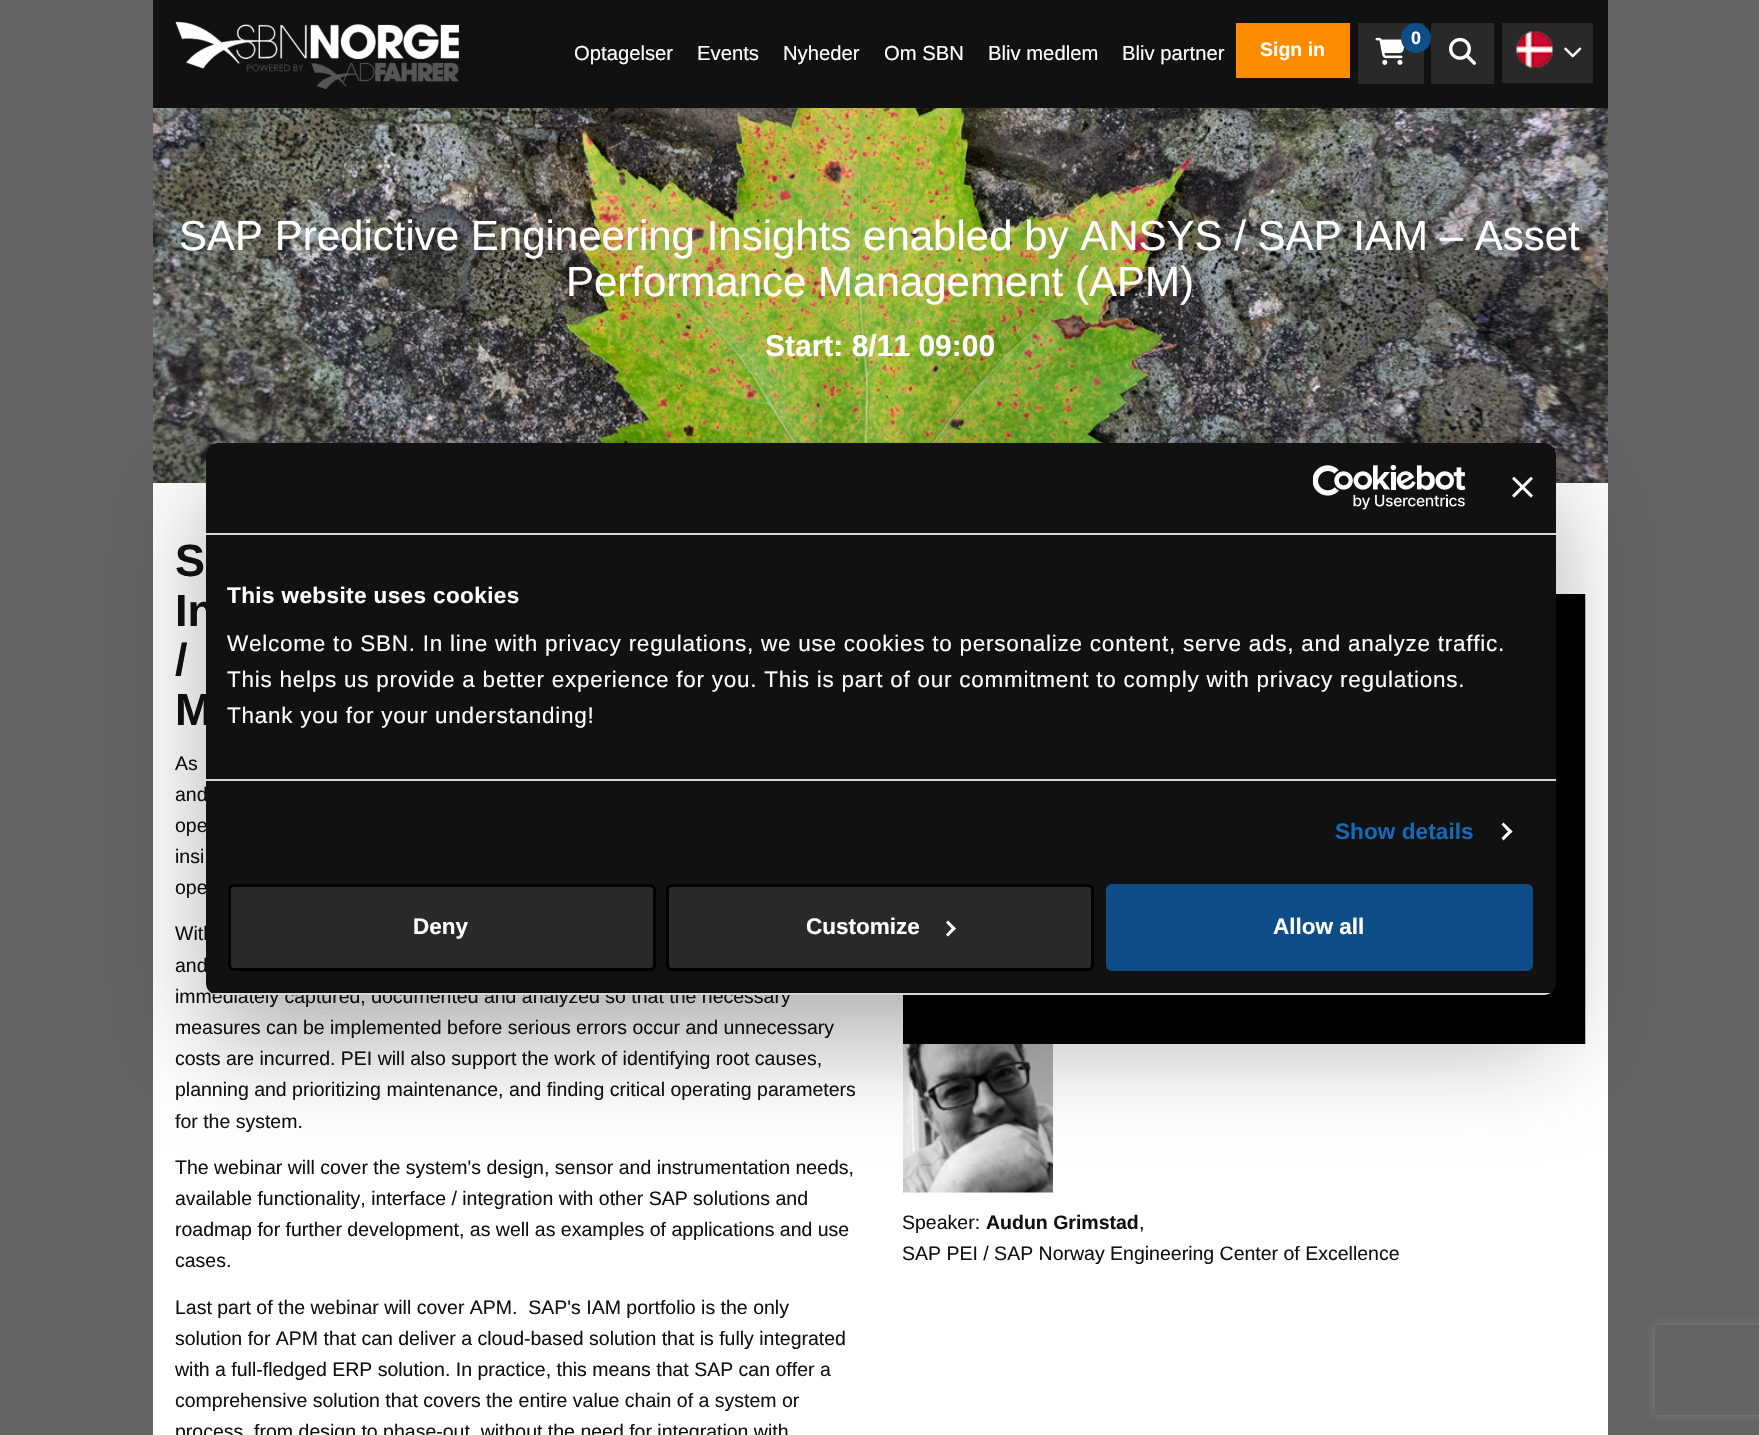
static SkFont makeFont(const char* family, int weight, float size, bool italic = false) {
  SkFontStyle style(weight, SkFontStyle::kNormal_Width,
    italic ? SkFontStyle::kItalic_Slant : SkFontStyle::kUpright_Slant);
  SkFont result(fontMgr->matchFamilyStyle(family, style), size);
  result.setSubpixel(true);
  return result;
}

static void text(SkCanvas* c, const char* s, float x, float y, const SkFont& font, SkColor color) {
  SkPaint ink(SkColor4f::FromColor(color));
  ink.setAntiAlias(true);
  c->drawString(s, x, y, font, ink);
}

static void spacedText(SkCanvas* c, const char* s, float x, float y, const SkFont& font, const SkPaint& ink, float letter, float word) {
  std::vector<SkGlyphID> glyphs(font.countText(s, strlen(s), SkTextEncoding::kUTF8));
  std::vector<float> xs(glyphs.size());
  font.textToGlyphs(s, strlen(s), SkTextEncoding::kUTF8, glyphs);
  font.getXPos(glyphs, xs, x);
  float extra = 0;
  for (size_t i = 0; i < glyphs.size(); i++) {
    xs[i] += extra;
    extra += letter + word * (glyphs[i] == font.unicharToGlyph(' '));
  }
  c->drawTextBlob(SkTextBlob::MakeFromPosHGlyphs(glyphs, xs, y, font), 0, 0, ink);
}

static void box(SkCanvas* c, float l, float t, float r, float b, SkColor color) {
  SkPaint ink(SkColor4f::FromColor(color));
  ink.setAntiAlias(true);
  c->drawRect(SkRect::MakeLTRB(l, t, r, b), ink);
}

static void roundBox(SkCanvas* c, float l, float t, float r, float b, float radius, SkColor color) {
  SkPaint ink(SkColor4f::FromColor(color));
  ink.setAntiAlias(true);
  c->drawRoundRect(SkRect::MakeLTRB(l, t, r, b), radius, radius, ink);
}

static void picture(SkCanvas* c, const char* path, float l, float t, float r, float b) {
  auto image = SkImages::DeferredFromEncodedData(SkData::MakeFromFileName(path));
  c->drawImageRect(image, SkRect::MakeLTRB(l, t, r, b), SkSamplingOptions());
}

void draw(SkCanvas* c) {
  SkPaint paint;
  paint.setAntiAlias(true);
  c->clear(0xff646464);
  box(c, 153, 483, 1608, 1435, 0xffffffff);
  box(c, 153, 0, 1608, 108, 0xff111111);
  picture(c, "img_01.png", 175, 21, 459, 90);
  box(c, 1358, 23, 1424, 84, 0xff292929);
  picture(c, "img_02.png", 1375, 37, 1405, 65);
  paint.setColor(0xff0e4d87);
  c->drawCircle(1416, 38, 15, paint);
  SkFont face1 = makeFont("Liberation Sans", 700, 18);
  text(c, "0", 1411, 44, face1, 0xffffffff);
  box(c, 1431, 23, 1494, 84, 0xff292929);
  picture(c, "img_03.png", 1449, 37, 1476, 65);
  box(c, 1502, 23, 1593, 83, 0xff292929);
  picture(c, "img_04.png", 1516, 31, 1553, 68);
  picture(c, "img_05.png", 1564, 47, 1582, 58);
  SkFont face2 = makeFont("Liberation Sans", 400, 20.25f);
  text(c, "Optagelser", 574, 60, face2, 0xffffffff);
  text(c, "Events", 697, 60, face2, 0xffffffff);
  text(c, "Nyheder", 783, 60, face2, 0xffffffff);
  text(c, "Om SBN", 884, 60, face2, 0xffffffff);
  text(c, "Bliv medlem", 988, 60, face2, 0xffffffff);
  text(c, "Bliv partner", 1122, 60, face2, 0xffffffff);
  box(c, 1236, 23, 1350, 78, 0xffff8c00);
  SkFont face3 = makeFont("Liberation Sans", 700, 19.5f);
  text(c, "Sign in", 1260, 56, face3, 0xffffffff);
  picture(c, "img_06.png", 153, 108, 1608, 483);
  SkFont face4 = makeFont("Liberation Sans", 400, 42);
  text(c, "SAP Predictive Engineering Insights enabled by ANSYS / SAP IAM – Asset", 179, 250, face4, 0xffffffff);
  text(c, "Performance Management (APM)", 566, 296, face4, 0xffffffff);
  SkFont face5 = makeFont("Liberation Sans", 700, 30);
  text(c, "Start: 8/11 09:00", 765, 356, face5, 0xffffffff);
  SkFont face6 = makeFont("Liberation Sans", 700, 45);
  text(c, "S", 175, 576, face6, 0xff111111);
  text(c, "In", 175, 626, face6, 0xff111111);
  text(c, "/", 175, 675, face6, 0xff111111);
  text(c, "M", 175, 725, face6, 0xff111111);
  SkFont face7 = makeFont("Liberation Sans", 400, 19.5f);
  text(c, "As", 175, 770, face7, 0xff111111);
  text(c, "and", 175, 801, face7, 0xff111111);
  text(c, "ope", 175, 832, face7, 0xff111111);
  text(c, "insi", 175, 863, face7, 0xff111111);
  text(c, "ope", 175, 894, face7, 0xff111111);
  text(c, "With", 175, 940, face7, 0xff111111);
  text(c, "and", 175, 972, face7, 0xff111111);
  text(c, "immediately captured, documented and analyzed so that the necessary", 175, 1003, face7, 0xff111111);
  text(c, "measures can be implemented before serious errors occur and unnecessary", 175, 1034, face7, 0xff111111);
  text(c, "costs are incurred. PEI will also support the work of identifying root causes,", 175, 1065, face7, 0xff111111);
  text(c, "planning and prioritizing maintenance, and finding critical operating parameters", 175, 1096, face7, 0xff111111);
  text(c, "for the system.", 175, 1128, face7, 0xff111111);
  text(c, "The webinar will cover the system's design, sensor and instrumentation needs,", 175, 1174, face7, 0xff111111);
  text(c, "available functionality, interface / integration with other SAP solutions and", 175, 1205, face7, 0xff111111);
  text(c, "roadmap for further development, as well as examples of applications and use", 175, 1236, face7, 0xff111111);
  text(c, "cases.", 175, 1267, face7, 0xff111111);
  text(c, "Last part of the webinar will cover APM.  SAP's IAM portfolio is the only", 175, 1314, face7, 0xff111111);
  text(c, "solution for APM that can deliver a cloud-based solution that is fully integrated", 175, 1345, face7, 0xff111111);
  text(c, "with a full-fledged ERP solution. In practice, this means that SAP can offer a", 175, 1376, face7, 0xff111111);
  text(c, "comprehensive solution that covers the entire value chain of a system or", 175, 1407, face7, 0xff111111);
  text(c, "process, from design to phase-out, without the need for integration with", 175, 1438, face7, 0xff111111);
  picture(c, "img_07.png", 903, 594, 1586, 1044);
  picture(c, "img_08.png", 903, 1044, 1053, 1193);
  text(c, "Speaker:", 902, 1229, face7, 0xff111111);
  text(c, "Audun Grimstad", 986, 1229, face3, 0xff111111);
  text(c, ",", 1139, 1229, face7, 0xff111111);
  text(c, "SAP PEI / SAP Norway Engineering Center of Excellence", 902, 1260, face7, 0xff111111);
  paint.setColor(0x4d000000);
  paint.setMaskFilter(SkMaskFilter::MakeBlur(kNormal_SkBlurStyle, 51));
  c->drawRoundRect(SkRect::MakeLTRB(206, 491, 1556, 1043), 12, 12, paint);
  paint.setMaskFilter(nullptr);
  roundBox(c, 206, 443, 1556, 995, 12, 0xff111111);
  box(c, 206, 533, 1556, 535, 0xffd6d6d6);
  picture(c, "img_09.png", 1313, 465, 1466, 510);
  picture(c, "img_10.png", 1512, 477, 1533, 498);
  box(c, 206, 779, 1556, 781, 0xffd6d6d6);
  SkFont face8 = makeFont("Liberation Sans", 700, 22.5f);
  paint.setColor(0xffffffff);
  spacedText(c, "This website uses cookies", 227, 603, face8, paint, 0.4f, 0);
  SkFont face9 = makeFont("Liberation Sans", 400, 22.5f);
  spacedText(c, "Welcome to SBN. In line with privacy regulations, we use cookies to personalize content, serve ads, and analyze traffic.", 227, 651, face9, paint, 0.75f, 0);
  spacedText(c, "This helps us provide a better experience for you. This is part of our commitment to comply with privacy regulations.", 227, 687, face9, paint, 0.75f, 0);
  spacedText(c, "Thank you for your understanding!", 227, 723, face9, paint, 0.75f, 0);
  paint.setColor(0xff1569b6);
  spacedText(c, "Show details", 1335, 839, face8, paint, 0.1f, 0);
  paint.setColor(0xffffffff);
  c->drawPath(SkPathBuilder().moveTo(1503.5f, 822.5f).lineTo(1512.5f, 831.5f).lineTo(1510, 833.5f).lineTo(1501.5f, 824.5f).close().detach(), paint);
  c->drawPath(SkPathBuilder().moveTo(1510, 829.5f).lineTo(1512.5f, 831.5f).lineTo(1503.5f, 840.5f).lineTo(1501.5f, 838).close().detach(), paint);
  c->save();
  c->clipPath(SkPathBuilder().moveTo(218, 443).lineTo(1544, 443).cubicTo(1550.5f, 443, 1556, 448.5f, 1556, 455).lineTo(1556, 983).cubicTo(1556, 989.5f, 1550.5f, 995, 1544, 995).lineTo(218, 995).cubicTo(211.5f, 995, 206, 989.5f, 206, 983).lineTo(206, 455).cubicTo(206, 448.5f, 211.5f, 443, 218, 443).close().detach(), true);
  box(c, 206, 993, 1556, 995, 0xffd6d6d6);
  c->restore();
  paint.setColor(0xff292929);
  c->drawRoundRect(SkRect::MakeLTRB(229.5f, 885.5f, 654.5f, 969.5f), 4.5f, 4.5f, paint);
  paint.setStyle(SkPaint::kStroke_Style);
  paint.setStrokeWidth(3);
  paint.setColor(0xff000000);
  c->drawRoundRect(SkRect::MakeLTRB(229.5f, 885.5f, 654.5f, 969.5f), 4.5f, 4.5f, paint);
  text(c, "Deny", 413, 934, face8, 0xffffffff);
  paint.setStyle(SkPaint::kFill_Style);
  paint.setColor(0xff292929);
  c->drawRoundRect(SkRect::MakeLTRB(667.5f, 885.5f, 1092.5f, 969.5f), 4.5f, 4.5f, paint);
  paint.setStyle(SkPaint::kStroke_Style);
  paint.setColor(0xff000000);
  c->drawRoundRect(SkRect::MakeLTRB(667.5f, 885.5f, 1092.5f, 969.5f), 4.5f, 4.5f, paint);
  text(c, "Customize", 806, 934, face8, 0xffffffff);
  paint.setStyle(SkPaint::kFill_Style);
  paint.setColor(0xffffffff);
  c->drawPath(SkPathBuilder().moveTo(948, 920.5f).lineTo(956, 928.5f).lineTo(953.5f, 930.5f).lineTo(946, 922.5f).close().detach(), paint);
  c->drawPath(SkPathBuilder().moveTo(953.5f, 926.5f).lineTo(956, 928.5f).lineTo(948, 936.5f).lineTo(946, 934.5f).close().detach(), paint);
  paint.setColor(0xff0e4d87);
  c->drawRoundRect(SkRect::MakeLTRB(1107.5f, 885.5f, 1531.5f, 969.5f), 4.5f, 4.5f, paint);
  paint.setStyle(SkPaint::kStroke_Style);
  c->drawRoundRect(SkRect::MakeLTRB(1107.5f, 885.5f, 1531.5f, 969.5f), 4.5f, 4.5f, paint);
  text(c, "Allow all", 1273, 934, face8, 0xffffffff);
  c->save();
  c->clipPath(SkPathBuilder(SkPathFillType::kEvenOdd).moveTo(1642, 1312).lineTo(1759, 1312).lineTo(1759, 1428).lineTo(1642, 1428).close().moveTo(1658, 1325).lineTo(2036, 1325).cubicTo(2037.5f, 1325, 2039, 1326.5f, 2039, 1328).lineTo(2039, 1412).cubicTo(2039, 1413.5f, 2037.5f, 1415, 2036, 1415).lineTo(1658, 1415).cubicTo(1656.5f, 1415, 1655, 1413.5f, 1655, 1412).lineTo(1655, 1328).cubicTo(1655, 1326.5f, 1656.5f, 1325, 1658, 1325).close().detach(), true);
  paint.setStyle(SkPaint::kFill_Style);
  paint.setColor(0xff808080);
  paint.setMaskFilter(SkMaskFilter::MakeBlur(kNormal_SkBlurStyle, 4));
  c->drawRoundRect(SkRect::MakeLTRB(1655, 1325, 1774, 1415), 3, 3, paint);
  paint.setMaskFilter(nullptr);
  c->restore();
}
